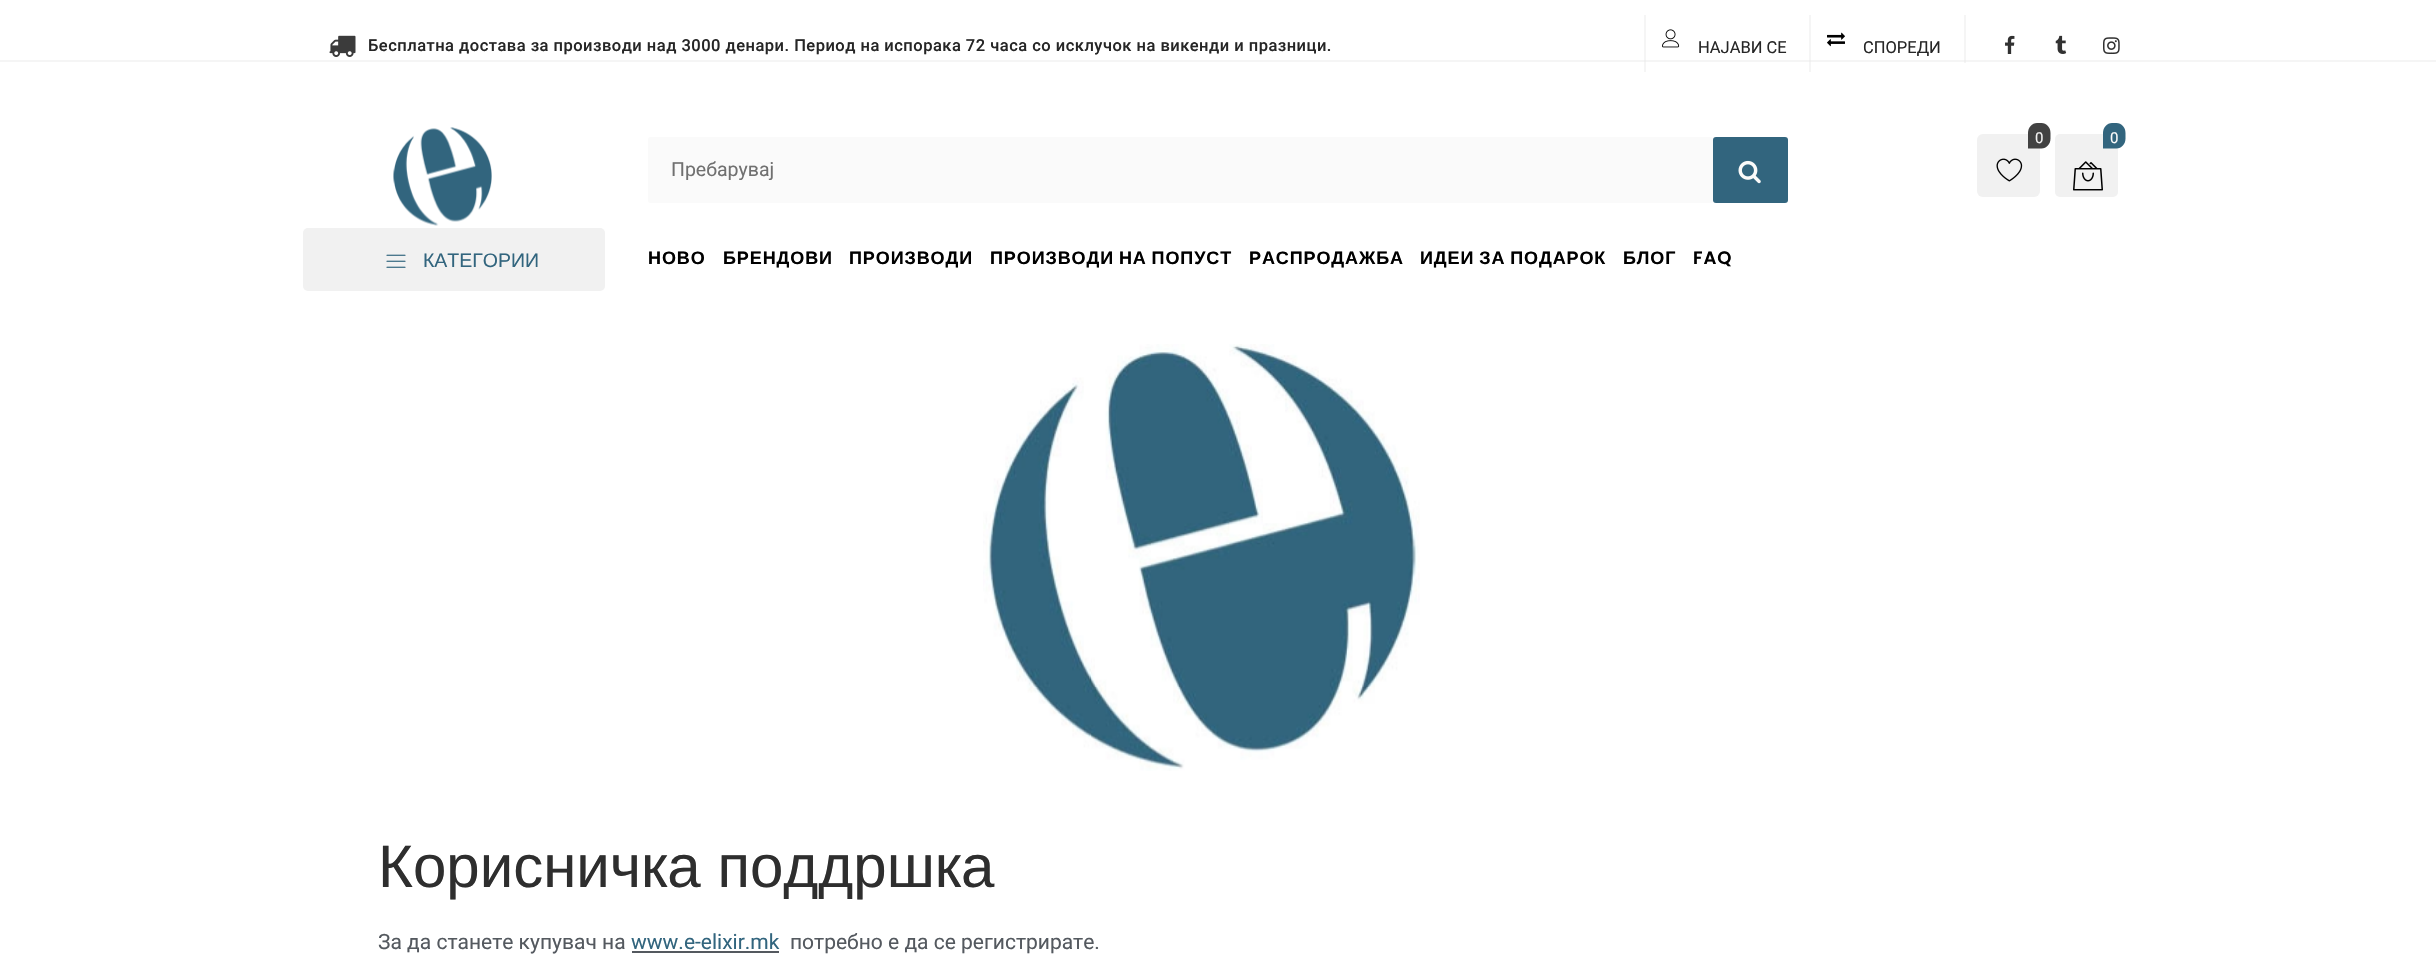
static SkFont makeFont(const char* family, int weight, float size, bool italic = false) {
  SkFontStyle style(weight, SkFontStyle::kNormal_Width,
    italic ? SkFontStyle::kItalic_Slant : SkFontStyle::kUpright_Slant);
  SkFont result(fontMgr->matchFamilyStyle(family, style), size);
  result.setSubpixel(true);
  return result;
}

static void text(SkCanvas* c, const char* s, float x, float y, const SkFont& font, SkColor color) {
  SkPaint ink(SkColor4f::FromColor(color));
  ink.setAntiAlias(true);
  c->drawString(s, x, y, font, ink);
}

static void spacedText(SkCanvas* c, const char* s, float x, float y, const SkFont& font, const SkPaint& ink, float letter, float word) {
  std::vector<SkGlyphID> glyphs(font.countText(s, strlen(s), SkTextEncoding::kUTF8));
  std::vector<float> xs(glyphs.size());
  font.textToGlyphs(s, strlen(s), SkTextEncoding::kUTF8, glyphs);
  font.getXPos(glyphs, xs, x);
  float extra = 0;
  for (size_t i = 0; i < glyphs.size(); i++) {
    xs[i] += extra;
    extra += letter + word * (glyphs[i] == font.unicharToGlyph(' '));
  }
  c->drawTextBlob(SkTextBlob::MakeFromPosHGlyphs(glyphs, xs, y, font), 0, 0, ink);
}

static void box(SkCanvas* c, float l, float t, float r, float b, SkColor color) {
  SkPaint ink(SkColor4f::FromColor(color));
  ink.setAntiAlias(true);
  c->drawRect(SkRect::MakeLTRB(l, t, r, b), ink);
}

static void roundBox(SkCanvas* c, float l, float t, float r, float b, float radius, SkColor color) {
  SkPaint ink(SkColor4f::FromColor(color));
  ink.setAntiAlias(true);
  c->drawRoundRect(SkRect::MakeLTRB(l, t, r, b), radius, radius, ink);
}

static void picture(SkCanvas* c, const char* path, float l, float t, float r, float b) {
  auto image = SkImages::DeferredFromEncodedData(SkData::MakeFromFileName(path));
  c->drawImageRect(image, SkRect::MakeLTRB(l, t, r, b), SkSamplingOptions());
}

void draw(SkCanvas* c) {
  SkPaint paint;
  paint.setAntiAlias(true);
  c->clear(0xffffffff);
  box(c, 1644, 15, 1646, 72, 0xfff5f5f5);
  box(c, 1809, 15, 1811, 72, 0xfff5f5f5);
  box(c, 1964, 15, 1966, 63, 0xfff5f5f5);
  box(c, 0, 60, 2436, 62, 0xfff5f5f5);
  box(c, 1644, 60, 1646, 62, 0xffefefef);
  box(c, 1809, 60, 1811, 62, 0xffefefef);
  box(c, 1964, 60, 1966, 62, 0xffefefef);
  picture(c, "img_01.png", 329, 35, 356, 57);
  SkFont face1 = makeFont("Roboto", 500, 16.5f);
  paint.setColor(0xff262626);
  spacedText(c, "Бесплатна достава за производи над 3000 денари. Период на испорака 72 часа со исклучок на викенди и празници.", 368, 51, face1, paint, 0.49f, 0);
  picture(c, "img_02.png", 1662, 29, 1680, 48);
  SkFont face2 = makeFont("Roboto", 400, 16.5f);
  text(c, "НАЈАВИ СЕ", 1698, 53, face2, 0xff262626);
  picture(c, "img_03.png", 1827, 32, 1845, 47);
  text(c, "СПОРЕДИ", 1863, 53, face2, 0xff262626);
  picture(c, "img_04.png", 2005, 35, 2015, 54);
  picture(c, "img_05.png", 2055, 35, 2067, 54);
  picture(c, "img_06.png", 2103, 37, 2120, 54);
  picture(c, "img_07.png", 393, 127, 492, 226);
  roundBox(c, 1977, 134, 2040, 197, 6, 0xfff1f1f1);
  paint.setColor(0xff424242);
  c->drawPath(SkPathBuilder().moveTo(2037, 123).lineTo(2041.5f, 123).cubicTo(2046.5f, 123, 2050.5f, 127.5f, 2050.5f, 133).lineTo(2050.5f, 138.5f).cubicTo(2050.5f, 144, 2046.5f, 148.5f, 2041.5f, 148.5f).lineTo(2028, 148.5f).lineTo(2028, 133).cubicTo(2028, 127.5f, 2032, 123, 2037, 123).close().detach(), paint);
  SkFont face3 = makeFont("Roboto", 400, 15);
  text(c, "0", 2035, 143, face3, 0xfff1f1f1);
  picture(c, "img_08.png", 1996, 158, 2023, 182);
  roundBox(c, 2055, 134, 2118, 197, 5, 0xfff1f1f1);
  paint.setColor(0xff32657e);
  c->drawPath(SkPathBuilder().moveTo(2112, 123).lineTo(2116.5f, 123).cubicTo(2121.5f, 123, 2125.5f, 127.5f, 2125.5f, 133).lineTo(2125.5f, 138.5f).cubicTo(2125.5f, 144, 2121.5f, 148.5f, 2116.5f, 148.5f).lineTo(2103, 148.5f).lineTo(2103, 133).cubicTo(2103, 127.5f, 2107, 123, 2112, 123).close().detach(), paint);
  text(c, "0", 2110, 143, face3, 0xfffafafa);
  picture(c, "img_09.png", 2073, 161, 2103, 191);
  roundBox(c, 648, 137, 1713, 203, 3, 0xfffafafa);
  c->save();
  c->clipRect(SkRect::MakeLTRB(671, 158, 1736, 180));
  SkFont face4 = makeFont("Roboto", 400, 19.5f);
  text(c, "Пребарувај", 671, 176, face4, 0xff707070);
  c->restore();
  roundBox(c, 1713, 137, 1788, 203, 3, 0xff32657e);
  picture(c, "img_10.png", 1738, 160, 1761, 184);
  roundBox(c, 303, 228, 605, 291, 5, 0xfff1f1f1);
  picture(c, "img_11.png", 386, 254, 406, 268);
  SkFont face5 = makeFont("Liberation Sans", 400, 19.5f);
  text(c, "КАТЕГОРИИ", 423, 267, face5, 0xff32657e);
  SkFont face6 = makeFont("Liberation Sans", 700, 18);
  paint.setColor(0xff000000);
  spacedText(c, "НОВО", 648, 264, face6, paint, 0.9f, 0);
  spacedText(c, "БРЕНДОВИ", 723, 264, face6, paint, 0.9f, 0);
  spacedText(c, "ПРОИЗВОДИ", 849, 264, face6, paint, 0.9f, 0);
  spacedText(c, "ПРОИЗВОДИ НА ПОПУСТ", 990, 264, face6, paint, 0.9f, -1);
  spacedText(c, "РАСПРОДАЖБА", 1249, 264, face6, paint, 0.9f, 0);
  spacedText(c, "ИДЕИ ЗА ПОДАРОК", 1420, 264, face6, paint, 0.9f, -1);
  spacedText(c, "БЛОГ", 1623, 264, face6, paint, 0.9f, 0);
  SkFont face7 = makeFont("Poppins", 600, 18);
  spacedText(c, "FAQ", 1693, 264, face7, paint, 0.9f, 0);
  picture(c, "img_12.png", 983, 344, 1420, 771);
  SkFont face8 = makeFont("Liberation Sans", 400, 60);
  text(c, "Корисничка поддршка", 378, 887, face8, 0xff2e2e2e);
  SkFont face9 = makeFont("Roboto", 400, 21);
  text(c, "За да станете купувач на", 378, 949, face9, 0xff54595f);
  text(c, "www.e-elixir.mk", 631, 949, face9, 0xff32657e);
  box(c, 632, 951, 779, 953, 0xff54595f);
  text(c, "потребно е да се регистрирате.", 790, 949, face9, 0xff54595f);
}
